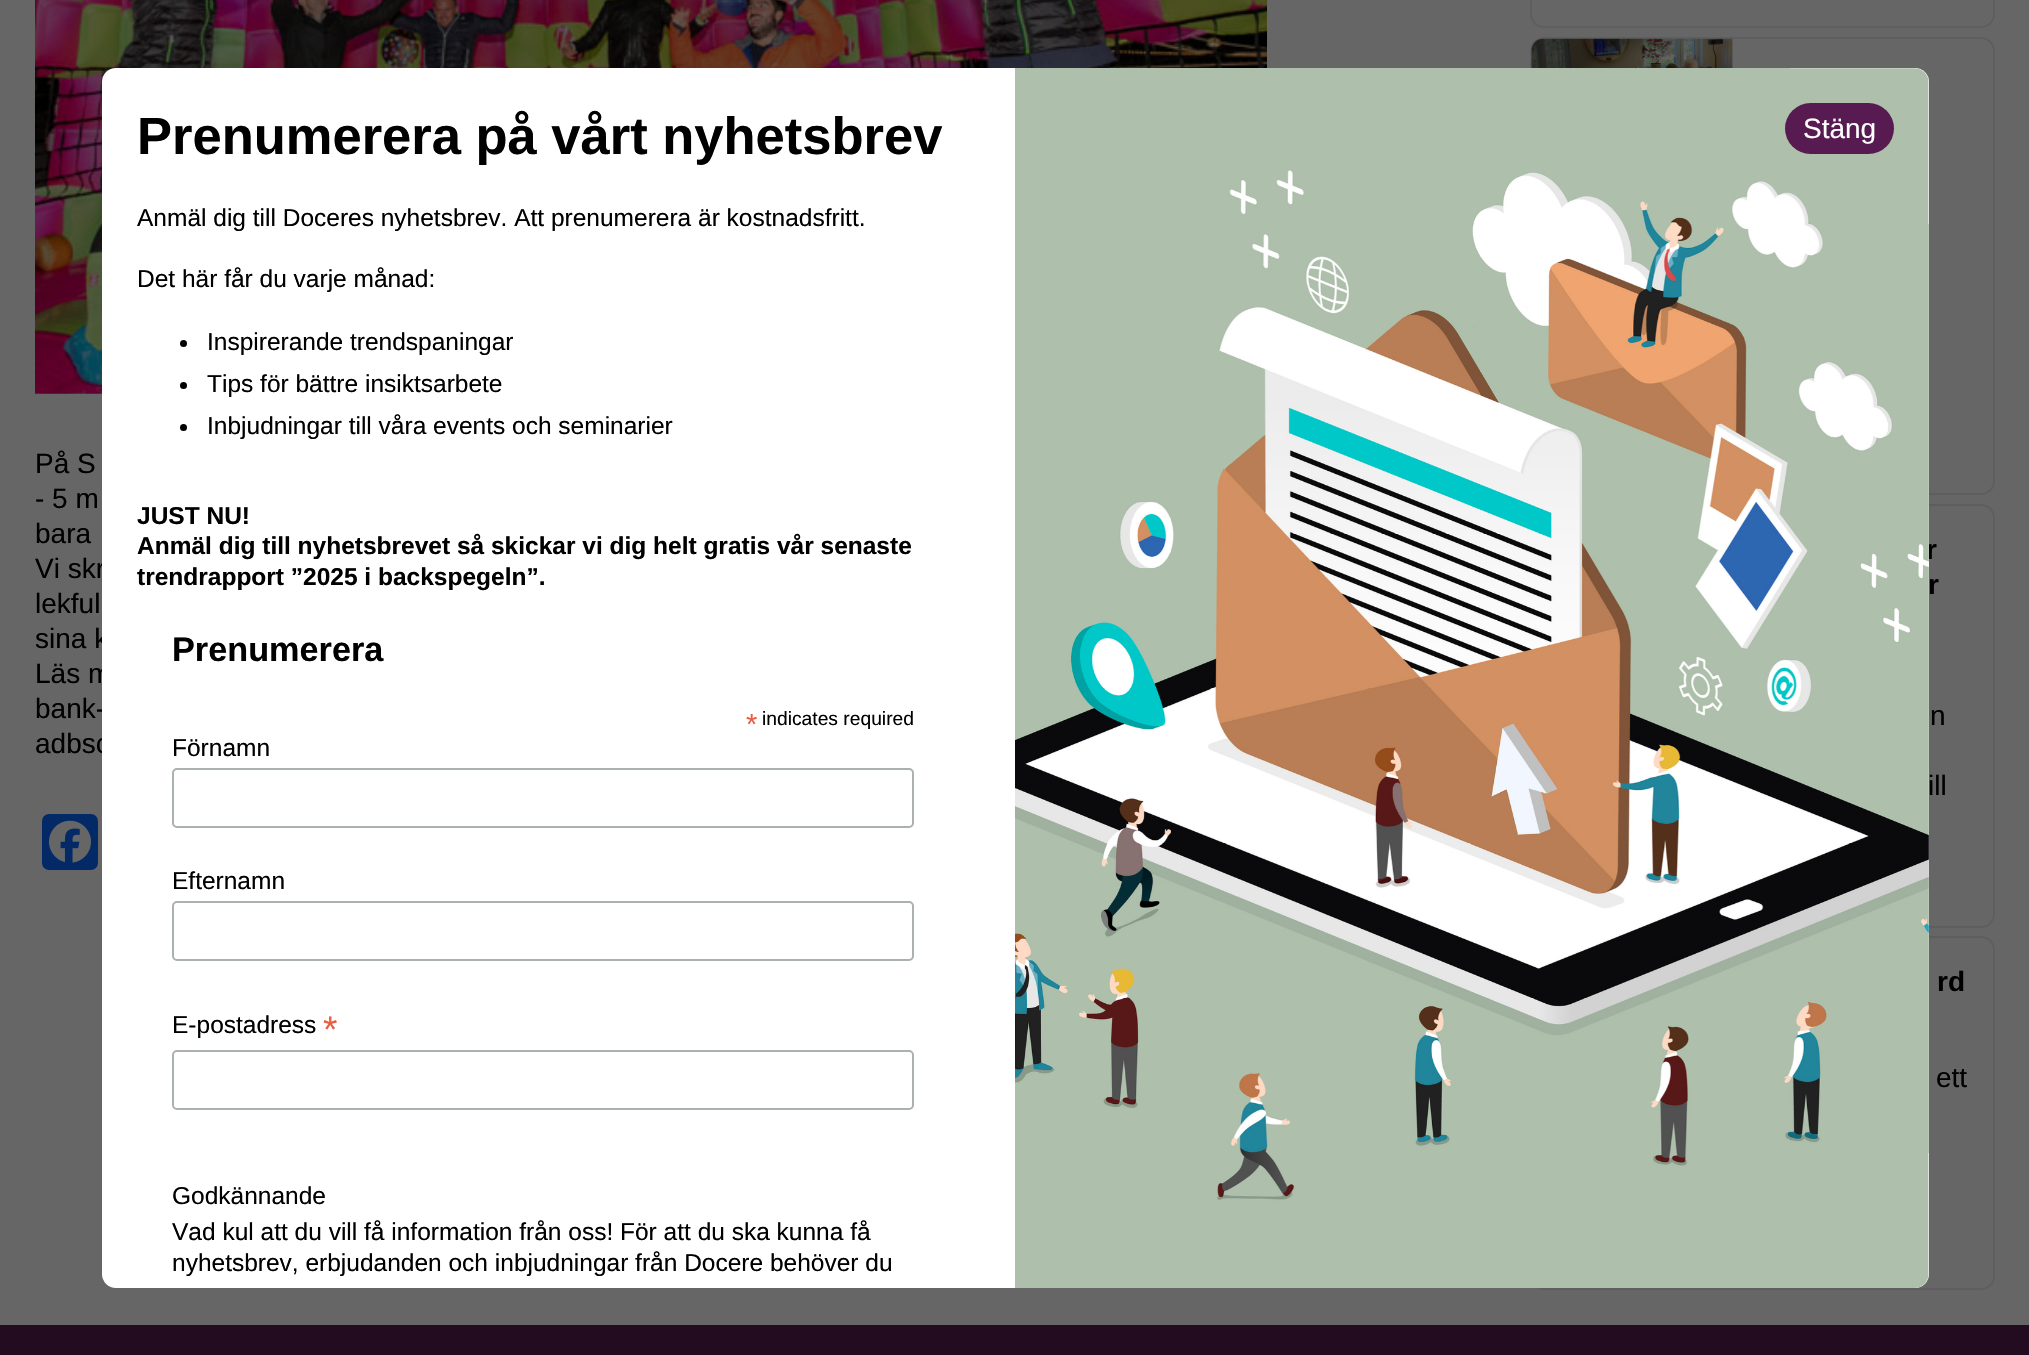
static SkFont makeFont(const char* family, int weight, float size, bool italic = false) {
  SkFontStyle style(weight, SkFontStyle::kNormal_Width,
    italic ? SkFontStyle::kItalic_Slant : SkFontStyle::kUpright_Slant);
  SkFont result(fontMgr->matchFamilyStyle(family, style), size);
  result.setSubpixel(true);
  return result;
}

static void text(SkCanvas* c, const char* s, float x, float y, const SkFont& font, SkColor color) {
  SkPaint ink(SkColor4f::FromColor(color));
  ink.setAntiAlias(true);
  c->drawString(s, x, y, font, ink);
}

static void box(SkCanvas* c, float l, float t, float r, float b, SkColor color) {
  SkPaint ink(SkColor4f::FromColor(color));
  ink.setAntiAlias(true);
  c->drawRect(SkRect::MakeLTRB(l, t, r, b), ink);
}

static void roundBox(SkCanvas* c, float l, float t, float r, float b, float radius, SkColor color) {
  SkPaint ink(SkColor4f::FromColor(color));
  ink.setAntiAlias(true);
  c->drawRoundRect(SkRect::MakeLTRB(l, t, r, b), radius, radius, ink);
}

static void picture(SkCanvas* c, const char* path, float l, float t, float r, float b) {
  auto image = SkImages::DeferredFromEncodedData(SkData::MakeFromFileName(path));
  c->drawImageRect(image, SkRect::MakeLTRB(l, t, r, b), SkSamplingOptions());
}

void draw(SkCanvas* c) {
  SkPaint paint;
  paint.setAntiAlias(true);
  c->clear(0xff666666);
  picture(c, "img_02.png", 35, 0, 1267, 394);
  SkFont face1 = makeFont("Liberation Sans", 400, 28);
  text(c, "Vi skr", 35, 578, face1, 0xff000000);
  text(c, "sina k", 35, 648, face1, 0xff000000);
  text(c, "Läs m", 35, 683, face1, 0xff000000);
  text(c, "bank-", 35, 718, face1, 0xff000000);
  text(c, "adbsc", 35, 753, face1, 0xff000000);
  paint.setStyle(SkPaint::kStroke_Style);
  paint.setStrokeWidth(2);
  paint.setColor(0xff5f5d5f);
  c->drawRoundRect(SkRect::MakeLTRB(1531, 38, 1994, 494), 13, 13, paint);
  c->drawRoundRect(SkRect::MakeLTRB(1531, 505, 1994, 927), 13, 13, paint);
  SkFont face2 = makeFont("Liberation Sans", 700, 28);
  text(c, "r", 1926, 559, face2, 0xff000000);
  c->drawRoundRect(SkRect::MakeLTRB(1531, 937, 1994, 1289), 13, 13, paint);
  roundBox(c, 102, 68, 1929, 1288, 14, 0xffffffff);
  SkFont face3 = makeFont("Liberation Sans", 700, 52.5f);
  text(c, "Prenumerera på vårt nyhetsbrev", 137, 154, face3, 0xff000000);
  SkFont face4 = makeFont("Liberation Sans", 400, 24.5f);
  text(c, "Anmäl dig till Doceres nyhetsbrev. Att prenumerera är kostnadsfritt.", 137, 226, face4, 0xff000000);
  text(c, "Det här får du varje månad:", 137, 287, face4, 0xff000000);
  paint.setStyle(SkPaint::kFill_Style);
  paint.setColor(0xff000000);
  c->drawCircle(183.5f, 343.5f, 3.5f, paint);
  text(c, "Inspirerande trendspaningar", 207, 350, face4, 0xff000000);
  c->drawCircle(183.5f, 385.5f, 3.5f, paint);
  text(c, "Tips för bättre insiktsarbete", 207, 392, face4, 0xff000000);
  c->drawCircle(183.5f, 427.5f, 3.5f, paint);
  text(c, "Inbjudningar till våra events och seminarier", 207, 434, face4, 0xff000000);
  SkFont face5 = makeFont("Liberation Sans", 700, 24.5f);
  text(c, "JUST NU!", 137, 524, face5, 0xff000000);
  text(c, "Anmäl dig till nyhetsbrevet så skickar vi dig helt gratis vår senaste", 137, 554, face5, 0xff000000);
  text(c, "trendrapport ”2025 i backspegeln”.", 137, 585, face5, 0xff000000);
  SkFont face6 = makeFont("Liberation Sans", 700, 34.25f);
  text(c, "Prenumerera", 172, 661, face6, 0xff000000);
  SkFont face7 = makeFont("Liberation Sans", 400, 29);
  text(c, "*", 746, 734, face7, 0xffe85c41);
  SkFont face8 = makeFont("Liberation Sans", 400, 19.25f);
  text(c, "indicates required", 762, 725, face8, 0xff000000);
  text(c, "Förnamn", 172, 756, face4, 0xff000000);
  paint.setStyle(SkPaint::kStroke_Style);
  paint.setColor(0xffabb0b2);
  c->drawRoundRect(SkRect::MakeLTRB(173, 769, 913, 827), 4, 4, paint);
  text(c, "Efternamn", 172, 889, face4, 0xff000000);
  c->drawRoundRect(SkRect::MakeLTRB(173, 902, 913, 960), 4, 4, paint);
  text(c, "E-postadress", 172, 1033, face4, 0xff000000);
  SkFont face9 = makeFont("Liberation Sans", 400, 37);
  text(c, "*", 323, 1042, face9, 0xffe85c41);
  c->drawRoundRect(SkRect::MakeLTRB(173, 1051, 913, 1109), 4, 4, paint);
  text(c, "Godkännande", 172, 1204, face4, 0xff000000);
  text(c, "Vad kul att du vill få information från oss! För att du ska kunna få", 172, 1240, face4, 0xff000000);
  text(c, "nyhetsbrev, erbjudanden och inbjudningar från Docere behöver du", 172, 1271, face4, 0xff000000);
  picture(c, "img_01.png", 1015, 68, 1929, 1288);
  roundBox(c, 1785, 103, 1894, 154, 25.5f, 0xff571b51);
  text(c, "Stäng", 1803, 138, face1, 0xffffffff);
  text(c, "På S", 35, 473, face1, 0xff000000);
  text(c, "- 5 m", 35, 508, face1, 0xff000000);
  text(c, "bara", 35, 543, face1, 0xff000000);
  text(c, "lekful", 35, 613, face1, 0xff000000);
  roundBox(c, 42, 814, 98, 870, 7, 0xff032966);
  picture(c, "img_03.png", 49, 820, 91, 863);
  paint.setColor(0xff5f5d5f);
  c->drawRoundRect(SkRect::MakeLTRB(1531, -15, 1994, 27), 13, 13, paint);
  picture(c, "img_04.png", 1531, 38, 1733, 68);
  text(c, "r", 1928, 594, face2, 0xff000000);
  text(c, "n", 1930, 725, face1, 0xff000000);
  text(c, "ill", 1928, 795, face1, 0xff000000);
  text(c, "rd", 1937, 991, face2, 0xff000000);
  text(c, "ett", 1936, 1087, face1, 0xff000000);
  box(c, 0, 1325, 2029, 1355, 0xff230b20);
}
